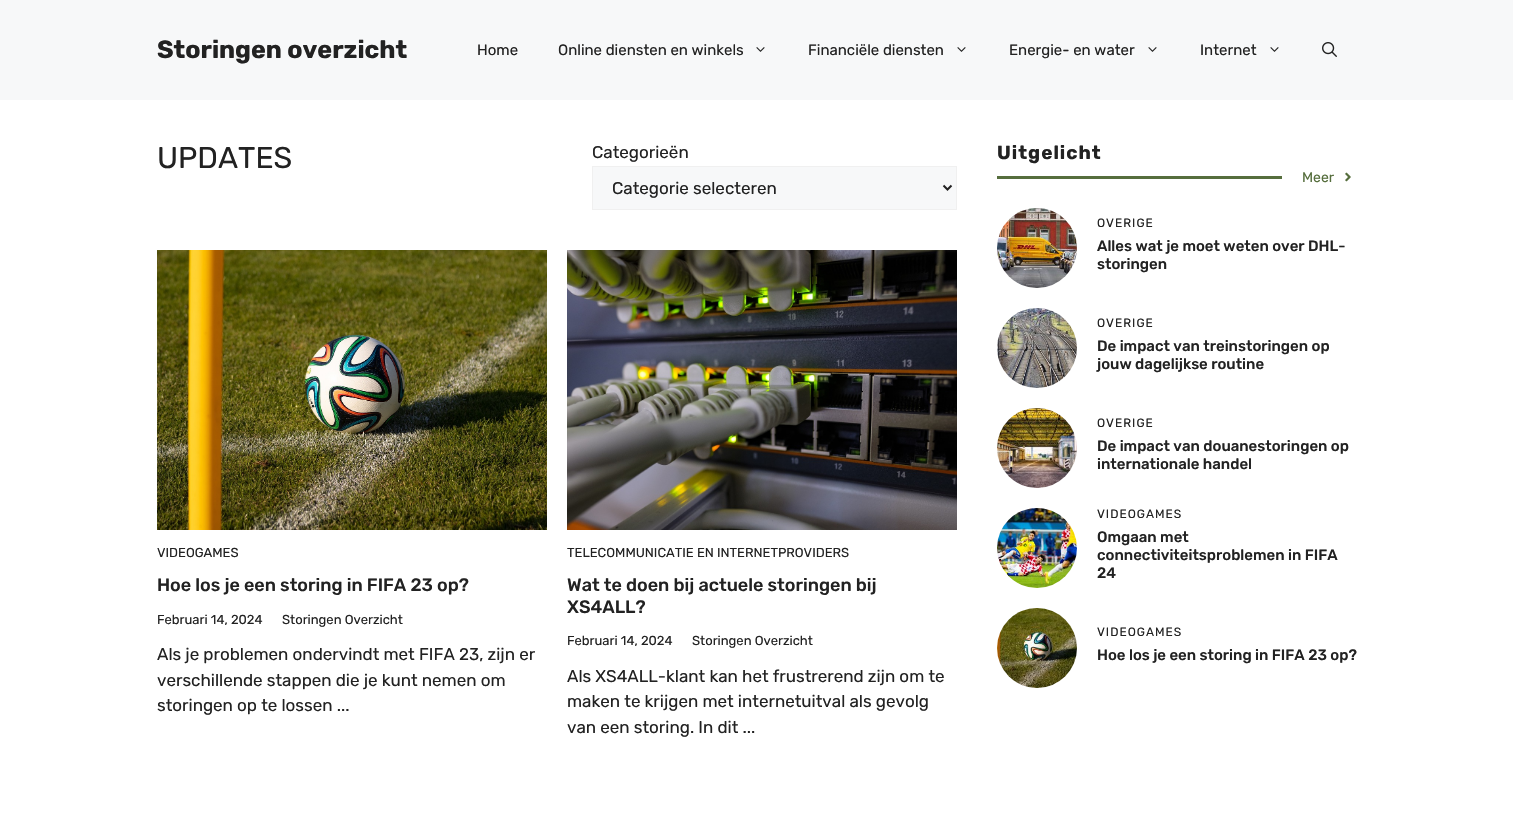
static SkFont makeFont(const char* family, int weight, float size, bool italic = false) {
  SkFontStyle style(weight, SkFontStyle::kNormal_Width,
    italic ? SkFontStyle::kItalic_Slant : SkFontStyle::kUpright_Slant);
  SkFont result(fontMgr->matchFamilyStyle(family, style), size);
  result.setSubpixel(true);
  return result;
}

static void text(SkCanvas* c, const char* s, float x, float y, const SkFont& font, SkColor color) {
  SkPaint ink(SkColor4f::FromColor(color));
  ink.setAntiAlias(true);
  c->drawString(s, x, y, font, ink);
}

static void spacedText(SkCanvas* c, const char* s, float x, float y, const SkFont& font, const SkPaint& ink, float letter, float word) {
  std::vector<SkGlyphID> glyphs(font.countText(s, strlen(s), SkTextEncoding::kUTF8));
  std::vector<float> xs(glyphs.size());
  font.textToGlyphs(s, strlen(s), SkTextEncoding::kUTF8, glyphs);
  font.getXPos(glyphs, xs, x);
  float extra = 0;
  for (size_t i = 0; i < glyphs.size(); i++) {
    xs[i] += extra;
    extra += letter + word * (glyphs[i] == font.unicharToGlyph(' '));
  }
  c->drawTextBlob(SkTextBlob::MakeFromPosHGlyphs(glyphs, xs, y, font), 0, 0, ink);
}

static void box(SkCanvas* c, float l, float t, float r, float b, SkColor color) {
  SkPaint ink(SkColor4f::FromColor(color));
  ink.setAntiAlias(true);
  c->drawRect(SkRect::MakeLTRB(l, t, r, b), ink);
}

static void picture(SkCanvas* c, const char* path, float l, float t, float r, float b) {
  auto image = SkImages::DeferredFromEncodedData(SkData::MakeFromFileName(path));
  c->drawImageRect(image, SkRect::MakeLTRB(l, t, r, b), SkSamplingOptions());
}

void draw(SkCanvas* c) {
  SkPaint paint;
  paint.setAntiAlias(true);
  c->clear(0xffffffff);
  box(c, 0, 0, 1513, 100, 0xfff7f8f9);
  SkFont face1 = makeFont("Rubik", 700, 25);
  text(c, "Storingen overzicht", 157, 58, face1, 0xff222222);
  SkFont face2 = makeFont("Rubik", 400, 15);
  text(c, "Home", 477, 55, face2, 0xff222222);
  text(c, "Online diensten en winkels", 558, 55, face2, 0xff222222);
  picture(c, "img_01.png", 756, 47, 765, 52);
  text(c, "Financiële diensten", 808, 55, face2, 0xff222222);
  picture(c, "img_01.png", 957, 47, 966, 52);
  text(c, "Energie- en water", 1009, 55, face2, 0xff222222);
  picture(c, "img_01.png", 1148, 47, 1157, 52);
  text(c, "Internet", 1200, 55, face2, 0xff222222);
  picture(c, "img_01.png", 1270, 47, 1279, 52);
  picture(c, "img_02.png", 1322, 42, 1337, 57);
  SkFont face3 = makeFont("Rubik", 400, 30);
  text(c, "UPDATES", 157, 168, face3, 0xff222222);
  SkFont face4 = makeFont("Rubik", 400, 17);
  text(c, "Categorieën", 592, 158, face4, 0xff222222);
  paint.setColor(0xfff7f8f9);
  c->drawRect(SkRect::MakeLTRB(592.5f, 166.5f, 956.5f, 209.5f), paint);
  paint.setStyle(SkPaint::kStroke_Style);
  paint.setStrokeWidth(1);
  paint.setColor(0xfff0f0f0);
  c->drawRect(SkRect::MakeLTRB(592.5f, 166.5f, 956.5f, 209.5f), paint);
  paint.setStrokeWidth(2);
  paint.setColor(0xff222222);
  c->drawPath(SkPathBuilder().moveTo(943.5f, 185.5f).lineTo(947.5f, 189.5f).lineTo(951.5f, 185.5f).detach(), paint);
  text(c, "Categorie selecteren", 612, 194, face4, 0xff222222);
  picture(c, "img_03.png", 157, 250, 547, 530);
  SkFont face5 = makeFont("Rubik", 400, 13);
  text(c, "VIDEOGAMES", 157, 557, face5, 0xff222222);
  SkFont face6 = makeFont("Rubik", 500, 18);
  text(c, "Hoe los je een storing in FIFA 23 op?", 157, 591, face6, 0xff222222);
  text(c, "Februari 14, 2024", 157, 624, face5, 0xff222222);
  text(c, "Storingen Overzicht", 282, 624, face5, 0xff222222);
  text(c, "Als je problemen ondervindt met FIFA 23, zijn er", 157, 660, face4, 0xff222222);
  text(c, "verschillende stappen die je kunt nemen om", 157, 686, face4, 0xff222222);
  text(c, "storingen op te lossen ...", 157, 711, face4, 0xff222222);
  picture(c, "img_04.png", 567, 250, 957, 530);
  text(c, "TELECOMMUNICATIE EN INTERNETPROVIDERS", 567, 557, face5, 0xff222222);
  text(c, "Wat te doen bij actuele storingen bij", 567, 591, face6, 0xff222222);
  text(c, "XS4ALL?", 567, 613, face6, 0xff222222);
  text(c, "Februari 14, 2024", 567, 645, face5, 0xff222222);
  text(c, "Storingen Overzicht", 692, 645, face5, 0xff222222);
  text(c, "Als XS4ALL-klant kan het frustrerend zijn om te", 567, 682, face4, 0xff222222);
  text(c, "maken te krijgen met internetuitval als gevolg", 567, 707, face4, 0xff222222);
  text(c, "van een storing. In dit ...", 567, 733, face4, 0xff222222);
  SkFont face7 = makeFont("Rubik", 700, 19);
  paint.setStyle(SkPaint::kFill_Style);
  spacedText(c, "Uitgelicht", 997, 159, face7, paint, 1, 0);
  box(c, 997, 176, 1282, 179, 0xff566e3d);
  SkFont face8 = makeFont("Rubik", 400, 14);
  text(c, "Meer", 1302, 182, face8, 0xff566e3d);
  picture(c, "img_05.png", 1345, 172, 1351, 182);
  picture(c, "img_06.png", 997, 208, 1077, 288);
  SkFont face9 = makeFont("Rubik", 400, 12);
  spacedText(c, "OVERIGE", 1097, 227, face9, paint, 1, 0);
  SkFont face10 = makeFont("Rubik", 500, 15);
  text(c, "Alles wat je moet weten over DHL-", 1097, 251, face10, 0xff222222);
  text(c, "storingen", 1097, 269, face10, 0xff222222);
  picture(c, "img_07.png", 997, 308, 1077, 388);
  spacedText(c, "OVERIGE", 1097, 327, face9, paint, 1, 0);
  text(c, "De impact van treinstoringen op", 1097, 351, face10, 0xff222222);
  text(c, "jouw dagelijkse routine", 1097, 369, face10, 0xff222222);
  picture(c, "img_08.png", 997, 408, 1077, 488);
  spacedText(c, "OVERIGE", 1097, 427, face9, paint, 1, 0);
  text(c, "De impact van douanestoringen op", 1097, 451, face10, 0xff222222);
  text(c, "internationale handel", 1097, 469, face10, 0xff222222);
  picture(c, "img_09.png", 997, 508, 1077, 588);
  spacedText(c, "VIDEOGAMES", 1097, 518, face9, paint, 1, 0);
  text(c, "Omgaan met", 1097, 542, face10, 0xff222222);
  text(c, "connectiviteitsproblemen in FIFA", 1097, 560, face10, 0xff222222);
  text(c, "24", 1097, 578, face10, 0xff222222);
  picture(c, "img_10.png", 997, 608, 1077, 688);
  spacedText(c, "VIDEOGAMES", 1097, 636, face9, paint, 1, 0);
  text(c, "Hoe los je een storing in FIFA 23 op?", 1097, 660, face10, 0xff222222);
}
